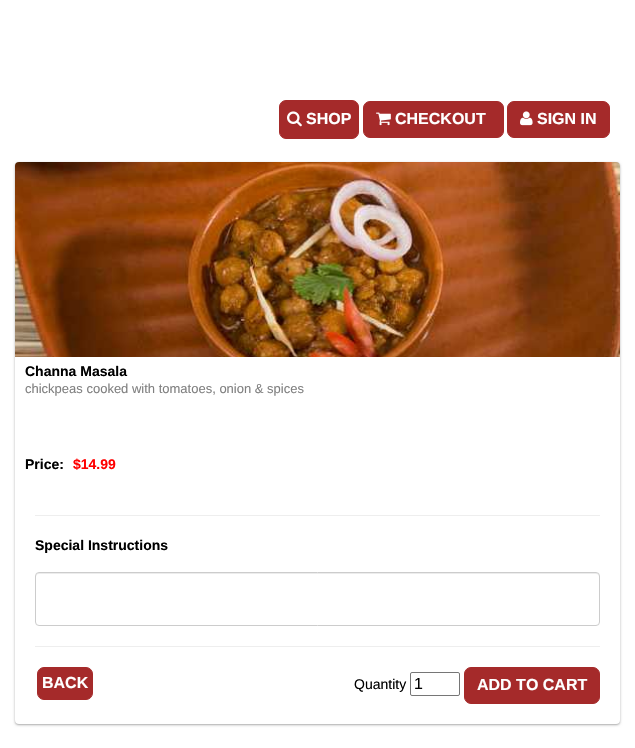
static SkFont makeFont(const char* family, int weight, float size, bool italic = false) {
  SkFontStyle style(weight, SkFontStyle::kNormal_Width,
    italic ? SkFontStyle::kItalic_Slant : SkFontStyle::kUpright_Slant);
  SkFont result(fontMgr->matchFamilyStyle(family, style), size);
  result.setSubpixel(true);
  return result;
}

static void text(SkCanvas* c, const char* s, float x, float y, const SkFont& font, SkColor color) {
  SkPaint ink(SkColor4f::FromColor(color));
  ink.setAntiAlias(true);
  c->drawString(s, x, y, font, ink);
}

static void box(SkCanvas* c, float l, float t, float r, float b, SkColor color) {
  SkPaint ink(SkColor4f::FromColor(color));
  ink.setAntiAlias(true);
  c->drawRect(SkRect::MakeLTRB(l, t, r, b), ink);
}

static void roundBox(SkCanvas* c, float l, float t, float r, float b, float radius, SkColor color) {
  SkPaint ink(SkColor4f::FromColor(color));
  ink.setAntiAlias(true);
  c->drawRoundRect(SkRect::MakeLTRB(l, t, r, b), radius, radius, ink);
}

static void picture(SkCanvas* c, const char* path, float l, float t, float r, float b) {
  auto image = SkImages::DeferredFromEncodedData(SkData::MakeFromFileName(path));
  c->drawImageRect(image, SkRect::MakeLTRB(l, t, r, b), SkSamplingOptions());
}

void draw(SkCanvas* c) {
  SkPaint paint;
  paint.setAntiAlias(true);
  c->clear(0xffffffff);
  paint.setColor(0xffa52a2a);
  c->drawRoundRect(SkRect::MakeLTRB(279.5f, 100.5f, 358.5f, 138.5f), 6.5f, 6.5f, paint);
  paint.setStyle(SkPaint::kStroke_Style);
  paint.setStrokeWidth(1);
  c->drawRoundRect(SkRect::MakeLTRB(279.5f, 100.5f, 358.5f, 138.5f), 6.5f, 6.5f, paint);
  picture(c, "img_01.png", 287, 111, 302, 127);
  SkFont face1 = makeFont("Liberation Sans", 700, 16);
  text(c, "SHOP", 306, 124, face1, 0xffffffff);
  paint.setStyle(SkPaint::kFill_Style);
  c->drawRoundRect(SkRect::MakeLTRB(363.5f, 101.5f, 503.5f, 137.5f), 6.5f, 6.5f, paint);
  paint.setStyle(SkPaint::kStroke_Style);
  c->drawRoundRect(SkRect::MakeLTRB(363.5f, 101.5f, 503.5f, 137.5f), 6.5f, 6.5f, paint);
  picture(c, "img_02.png", 376, 112, 391, 126);
  text(c, "CHECKOUT", 395, 124, face1, 0xffffffff);
  paint.setStyle(SkPaint::kFill_Style);
  c->drawRoundRect(SkRect::MakeLTRB(507.5f, 101.5f, 609.5f, 137.5f), 6.5f, 6.5f, paint);
  paint.setStyle(SkPaint::kStroke_Style);
  c->drawRoundRect(SkRect::MakeLTRB(507.5f, 101.5f, 609.5f, 137.5f), 6.5f, 6.5f, paint);
  picture(c, "img_03.png", 520, 111, 533, 126);
  text(c, "SIGN IN", 537, 124, face1, 0xffffffff);
  paint.setStyle(SkPaint::kFill_Style);
  paint.setColor(0x3d000000);
  paint.setMaskFilter(SkMaskFilter::MakeBlur(kNormal_SkBlurStyle, 1));
  c->drawRoundRect(SkRect::MakeLTRB(15, 163, 620, 725), 4, 4, paint);
  paint.setMaskFilter(nullptr);
  paint.setColor(0x1f000000);
  paint.setMaskFilter(SkMaskFilter::MakeBlur(kNormal_SkBlurStyle, 1.5f));
  c->drawRoundRect(SkRect::MakeLTRB(15, 163, 620, 725), 4, 4, paint);
  paint.setMaskFilter(nullptr);
  roundBox(c, 15, 162, 620, 724, 4, 0xffffffff);
  picture(c, "img_04.png", 15, 162, 620, 357);
  SkFont face2 = makeFont("Liberation Sans", 700, 14);
  text(c, "Channa Masala", 25, 376, face2, 0xff000000);
  SkFont face3 = makeFont("Liberation Sans", 400, 13);
  text(c, "chickpeas cooked with tomatoes, onion & spices", 25, 393, face3, 0xff808080);
  text(c, "Price:", 25, 469, face2, 0xff000000);
  text(c, "$14.99", 73, 469, face2, 0xffff0000);
  box(c, 35, 515, 600, 516, 0xffeeeeee);
  text(c, "Special Instructions", 35, 550, face2, 0xff000000);
  paint.setColor(0xffececec);
  c->drawPath(SkPathBuilder().moveTo(39, 574).lineTo(596, 574).cubicTo(598, 574, 599, 575, 599, 577).lineTo(599, 576).cubicTo(599, 574, 598, 573, 596, 573).lineTo(39, 573).cubicTo(37, 573, 36, 574, 36, 576).lineTo(36, 577).cubicTo(36, 575, 37, 574, 39, 574).close().detach(), paint);
  paint.setStyle(SkPaint::kStroke_Style);
  paint.setColor(0xffcccccc);
  c->drawRoundRect(SkRect::MakeLTRB(35.5f, 572.5f, 599.5f, 625.5f), 3.5f, 3.5f, paint);
  box(c, 35, 646, 600, 647, 0xffeeeeee);
  paint.setStyle(SkPaint::kFill_Style);
  paint.setColor(0xffa52a2a);
  c->drawRoundRect(SkRect::MakeLTRB(37.5f, 667.5f, 92.5f, 699.5f), 6.5f, 6.5f, paint);
  paint.setStyle(SkPaint::kStroke_Style);
  c->drawRoundRect(SkRect::MakeLTRB(37.5f, 667.5f, 92.5f, 699.5f), 6.5f, 6.5f, paint);
  text(c, "BACK", 42, 688, face1, 0xffffffff);
  SkFont face4 = makeFont("Liberation Sans", 400, 14);
  text(c, "Quantity", 354, 689, face4, 0xff000000);
  paint.setColor(0xff767676);
  c->drawRoundRect(SkRect::MakeLTRB(410.5f, 672.5f, 459.5f, 695.5f), 1.5f, 1.5f, paint);
  SkFont face5 = makeFont("Liberation Sans", 400, 16);
  text(c, "1", 414, 689, face5, 0xff000000);
  paint.setStyle(SkPaint::kFill_Style);
  paint.setColor(0xffa52a2a);
  c->drawRoundRect(SkRect::MakeLTRB(464.5f, 667.5f, 599.5f, 703.5f), 6.5f, 6.5f, paint);
  paint.setStyle(SkPaint::kStroke_Style);
  c->drawRoundRect(SkRect::MakeLTRB(464.5f, 667.5f, 599.5f, 703.5f), 6.5f, 6.5f, paint);
  text(c, "ADD TO CART", 477, 690, face1, 0xffffffff);
}
